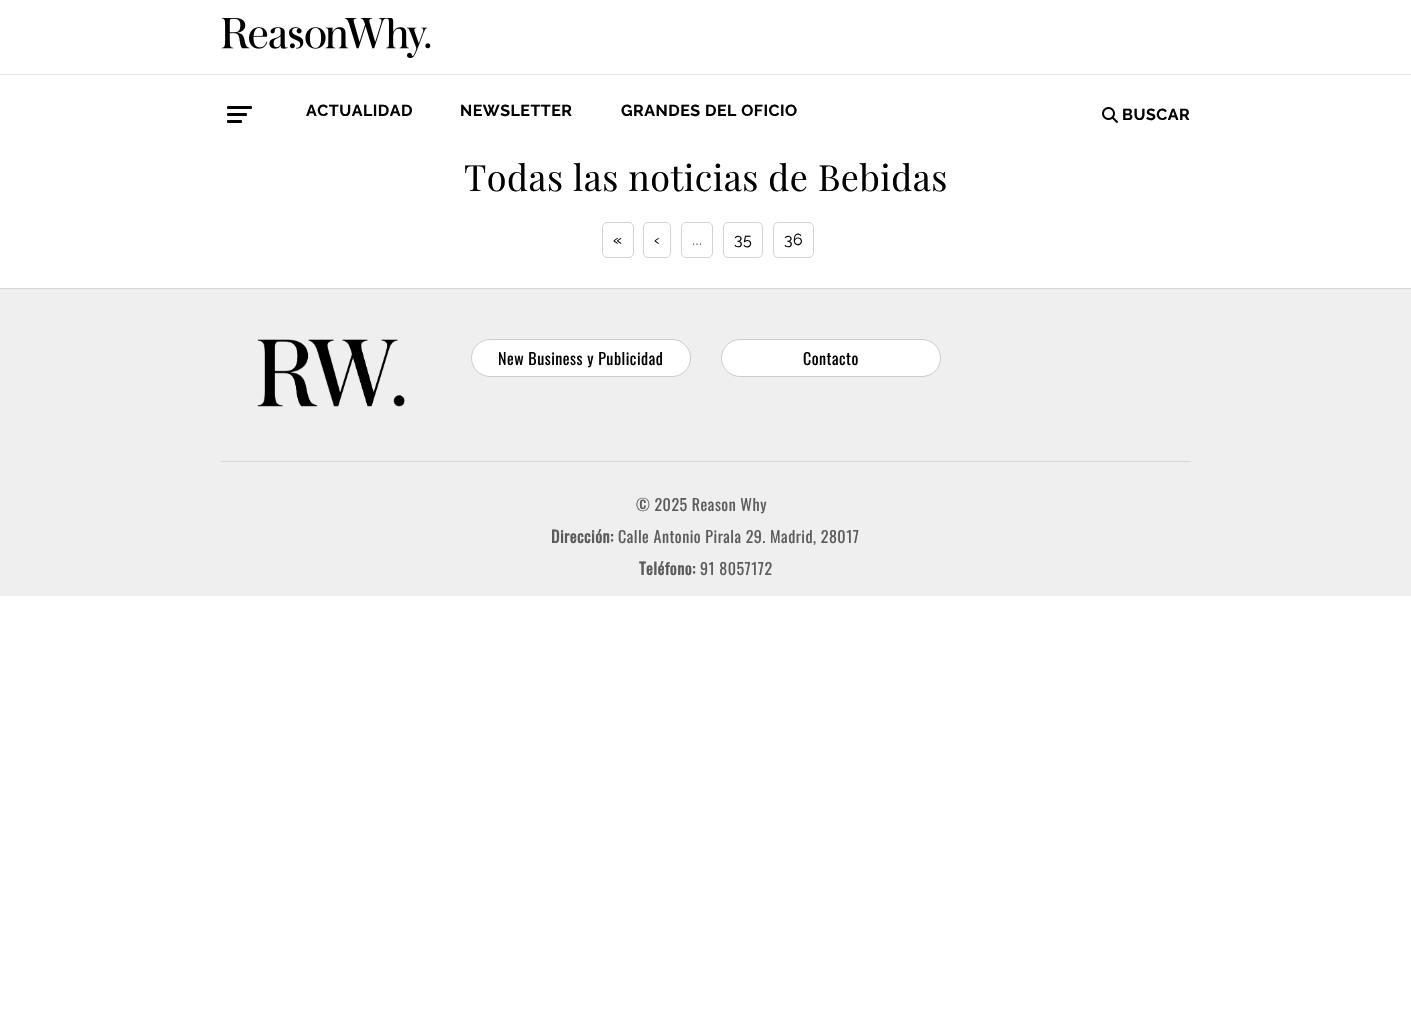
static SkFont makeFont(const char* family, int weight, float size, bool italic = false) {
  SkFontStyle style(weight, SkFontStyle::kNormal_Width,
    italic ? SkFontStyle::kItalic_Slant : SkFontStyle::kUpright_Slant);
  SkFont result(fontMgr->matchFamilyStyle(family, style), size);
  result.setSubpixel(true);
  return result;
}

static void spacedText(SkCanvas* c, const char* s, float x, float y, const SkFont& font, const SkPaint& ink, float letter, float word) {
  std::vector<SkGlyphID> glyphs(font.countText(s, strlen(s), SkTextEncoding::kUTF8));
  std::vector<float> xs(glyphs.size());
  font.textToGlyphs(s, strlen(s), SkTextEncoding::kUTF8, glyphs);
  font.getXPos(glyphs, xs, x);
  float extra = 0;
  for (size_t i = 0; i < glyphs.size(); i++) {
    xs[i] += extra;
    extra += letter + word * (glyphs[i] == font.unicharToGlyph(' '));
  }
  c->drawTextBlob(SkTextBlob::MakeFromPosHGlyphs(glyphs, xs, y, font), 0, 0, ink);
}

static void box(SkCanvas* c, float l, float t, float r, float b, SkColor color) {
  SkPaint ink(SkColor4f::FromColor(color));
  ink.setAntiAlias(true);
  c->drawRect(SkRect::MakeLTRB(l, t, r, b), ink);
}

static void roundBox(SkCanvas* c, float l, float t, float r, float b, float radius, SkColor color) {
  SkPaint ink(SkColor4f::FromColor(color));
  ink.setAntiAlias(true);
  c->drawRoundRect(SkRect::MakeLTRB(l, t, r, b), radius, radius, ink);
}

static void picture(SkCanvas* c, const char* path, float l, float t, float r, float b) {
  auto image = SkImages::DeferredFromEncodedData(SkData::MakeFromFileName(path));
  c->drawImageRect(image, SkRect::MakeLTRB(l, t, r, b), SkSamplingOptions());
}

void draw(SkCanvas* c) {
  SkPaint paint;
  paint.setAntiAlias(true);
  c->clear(0xffffffff);
  picture(c, "img_01.png", 221, 18, 431, 58);
  box(c, 0, 74, 1411, 75, 0xffe6e6e6);
  roundBox(c, 227, 106, 252, 109, 1, 0xff000000);
  roundBox(c, 227, 113, 247, 116, 1, 0xff000000);
  roundBox(c, 227, 120, 242, 123, 1, 0xff000000);
  SkFont face1 = makeFont("Raleway", 700, 16);
  paint.setColor(0xff000000);
  spacedText(c, "ACTUALIDAD", 306, 116, face1, paint, 0.5f, 0);
  spacedText(c, "NEWSLETTER", 460, 116, face1, paint, 0.5f, 0);
  spacedText(c, "GRANDES DEL OFICIO", 621, 116, face1, paint, 0.5f, 0);
  picture(c, "img_02.png", 1102, 107, 1118, 123);
  spacedText(c, "BUSCAR", 1122, 120, face1, paint, 0.5f, 0);
  SkFont face2 = makeFont("Playfair Display", 400, 36);
  spacedText(c, "Todas las noticias de Bebidas", 464, 191, face2, paint, 0.5f, 0);
  paint.setStyle(SkPaint::kStroke_Style);
  paint.setStrokeWidth(1);
  paint.setColor(0xffd3d3d3);
  c->drawRoundRect(SkRect::MakeLTRB(602.5f, 222.5f, 633.5f, 257.5f), 4.5f, 4.5f, paint);
  SkFont face3 = makeFont("Raleway", 400, 16);
  paint.setStyle(SkPaint::kFill_Style);
  paint.setColor(0xff000000);
  spacedText(c, "«", 613, 245, face3, paint, 0.5f, 0);
  paint.setStyle(SkPaint::kStroke_Style);
  paint.setColor(0xffd3d3d3);
  c->drawRoundRect(SkRect::MakeLTRB(643.5f, 222.5f, 670.5f, 257.5f), 4.5f, 4.5f, paint);
  paint.setStyle(SkPaint::kFill_Style);
  paint.setColor(0xff000000);
  spacedText(c, "‹", 654, 245, face3, paint, 0.5f, 0);
  paint.setStyle(SkPaint::kStroke_Style);
  paint.setColor(0xffd3d3d3);
  c->drawRoundRect(SkRect::MakeLTRB(681.5f, 222.5f, 712.5f, 257.5f), 4.5f, 4.5f, paint);
  paint.setStyle(SkPaint::kFill_Style);
  paint.setColor(0xff5b5b5b);
  spacedText(c, "...", 692, 245, face3, paint, 0.5f, 0);
  paint.setStyle(SkPaint::kStroke_Style);
  paint.setColor(0xffd3d3d3);
  c->drawRoundRect(SkRect::MakeLTRB(723.5f, 222.5f, 762.5f, 257.5f), 4.5f, 4.5f, paint);
  paint.setStyle(SkPaint::kFill_Style);
  paint.setColor(0xff000000);
  spacedText(c, "35", 734, 245, face3, paint, 0.5f, 0);
  paint.setStyle(SkPaint::kStroke_Style);
  paint.setColor(0xffd3d3d3);
  c->drawRoundRect(SkRect::MakeLTRB(773.5f, 222.5f, 813.5f, 257.5f), 4.5f, 4.5f, paint);
  paint.setStyle(SkPaint::kFill_Style);
  paint.setColor(0xff000000);
  spacedText(c, "36", 784, 245, face3, paint, 0.5f, 0);
  box(c, 0, 289, 1411, 596, 0xffefefef);
  box(c, 0, 288, 1411, 289, 0xffd7d7d7);
  picture(c, "img_03.png", 257, 339, 405, 407);
  paint.setColor(0xffffffff);
  c->drawRoundRect(SkRect::MakeLTRB(471.5f, 339.5f, 690.5f, 376.5f), 18.5f, 18.5f, paint);
  paint.setStyle(SkPaint::kStroke_Style);
  paint.setColor(0xffcccccc);
  c->drawRoundRect(SkRect::MakeLTRB(471.5f, 339.5f, 690.5f, 376.5f), 18.5f, 18.5f, paint);
  SkFont face4 = makeFont("Oswald", 400, 16);
  paint.setStyle(SkPaint::kFill_Style);
  paint.setColor(0xff000000);
  spacedText(c, "New Business y Publicidad", 498, 365, face4, paint, 0.5f, 0);
  paint.setColor(0xffffffff);
  c->drawRoundRect(SkRect::MakeLTRB(721.5f, 339.5f, 940.5f, 376.5f), 18.5f, 18.5f, paint);
  paint.setStyle(SkPaint::kStroke_Style);
  paint.setColor(0xffcccccc);
  c->drawRoundRect(SkRect::MakeLTRB(721.5f, 339.5f, 940.5f, 376.5f), 18.5f, 18.5f, paint);
  paint.setStyle(SkPaint::kFill_Style);
  paint.setColor(0xff000000);
  spacedText(c, "Contacto", 803, 365, face4, paint, 0.5f, 0);
  box(c, 221, 461, 1191, 462, 0xffd7d7d7);
  paint.setColor(0xff5b5b5b);
  spacedText(c, "© 2025 Reason Why", 636, 511, face4, paint, 0.5f, 0);
  SkFont face5 = makeFont("Oswald", 700, 16);
  spacedText(c, "Dirección:", 551, 543, face5, paint, 0.5f, 0);
  spacedText(c, "Calle Antonio Pirala 29. Madrid, 28017", 618, 543, face4, paint, 0.5f, 0);
  spacedText(c, "Teléfono:", 639, 575, face5, paint, 0.5f, 0);
  spacedText(c, "91 8057172", 700, 575, face4, paint, 0.5f, 0);
}
